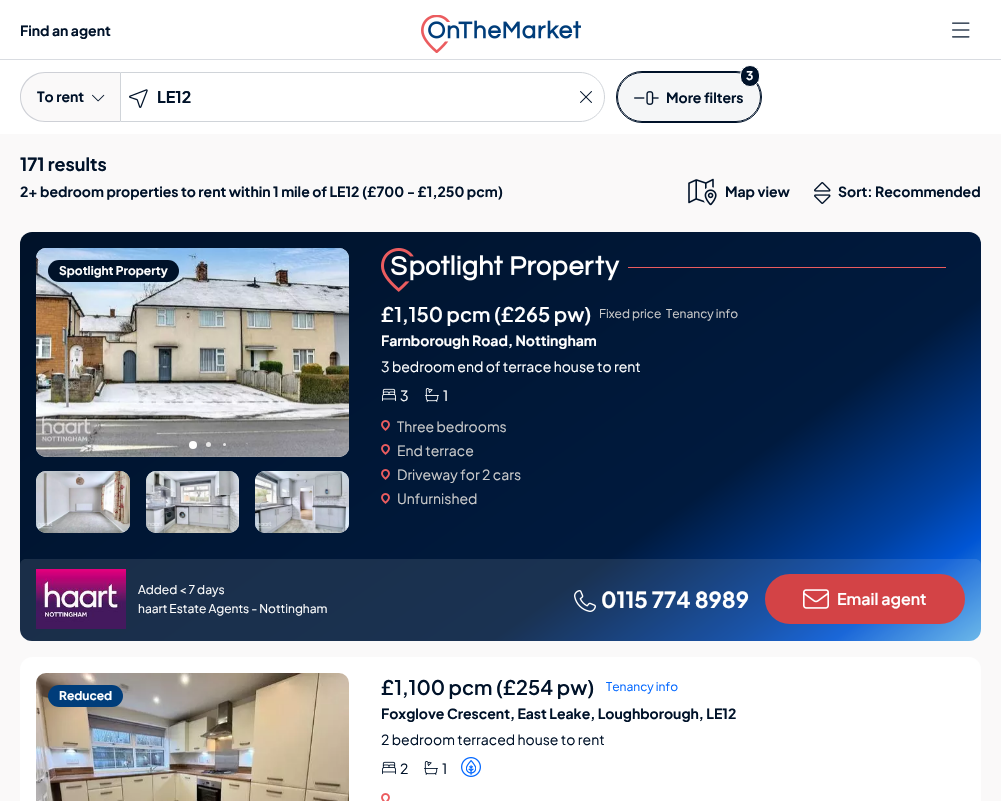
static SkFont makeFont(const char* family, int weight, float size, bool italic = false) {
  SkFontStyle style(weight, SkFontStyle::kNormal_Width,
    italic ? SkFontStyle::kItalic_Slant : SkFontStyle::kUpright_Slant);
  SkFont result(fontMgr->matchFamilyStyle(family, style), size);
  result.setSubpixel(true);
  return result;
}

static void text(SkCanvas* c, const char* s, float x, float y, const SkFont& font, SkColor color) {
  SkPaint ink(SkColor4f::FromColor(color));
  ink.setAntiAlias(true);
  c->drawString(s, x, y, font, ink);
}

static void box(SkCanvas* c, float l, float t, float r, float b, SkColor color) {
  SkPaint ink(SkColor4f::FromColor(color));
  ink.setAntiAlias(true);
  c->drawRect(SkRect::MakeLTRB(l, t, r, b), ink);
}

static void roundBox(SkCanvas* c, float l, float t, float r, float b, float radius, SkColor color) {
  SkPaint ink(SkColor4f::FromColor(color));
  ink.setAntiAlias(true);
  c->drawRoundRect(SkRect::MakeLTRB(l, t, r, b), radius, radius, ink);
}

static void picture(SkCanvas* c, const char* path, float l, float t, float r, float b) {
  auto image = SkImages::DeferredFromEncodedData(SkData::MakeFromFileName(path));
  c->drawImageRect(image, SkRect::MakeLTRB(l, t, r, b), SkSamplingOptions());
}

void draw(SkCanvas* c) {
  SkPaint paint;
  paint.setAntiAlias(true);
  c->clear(0xffffffff);
  box(c, 0, 59, 1001, 60, 0xffd9dce1);
  SkFont face1 = makeFont("Plus Jakarta Sans", 700, 14);
  text(c, "Find an agent", 20, 36, face1, 0xff001229);
  picture(c, "img_01.png", 421, 15, 581, 53);
  picture(c, "img_02.png", 952, 22, 970, 38);
  paint.setColor(0xfffaf9f9);
  c->drawPath(SkPathBuilder().moveTo(45, 72).lineTo(120, 72).lineTo(120, 122).lineTo(45, 122).cubicTo(31, 122, 20, 111, 20, 97).cubicTo(20, 83, 31, 72, 45, 72).close().detach(), paint);
  paint.setColor(0x80a1a8b3);
  c->drawPath(SkPathBuilder(SkPathFillType::kEvenOdd).moveTo(45, 72).lineTo(120, 72).lineTo(120, 122).lineTo(45, 122).cubicTo(31, 122, 20, 111, 20, 97).cubicTo(20, 83, 31, 72, 45, 72).close().moveTo(45, 73).lineTo(120, 73).lineTo(120, 121).lineTo(45, 121).cubicTo(32, 121, 21, 110, 21, 97).cubicTo(21, 84, 32, 73, 45, 73).close().detach(), paint);
  text(c, "To rent", 37, 102, face1, 0xff001229);
  picture(c, "img_03.png", 92, 94, 105, 102);
  paint.setStyle(SkPaint::kStroke_Style);
  paint.setStrokeWidth(1);
  paint.setColor(0xffd0d4d9);
  c->drawPath(SkPathBuilder().moveTo(120.5f, 72.5f).lineTo(580, 72.5f).cubicTo(593.5f, 72.5f, 604.5f, 83.5f, 604.5f, 97).cubicTo(604.5f, 110.5f, 593.5f, 121.5f, 580, 121.5f).lineTo(120.5f, 121.5f).close().detach(), paint);
  picture(c, "img_04.png", 129, 89, 148, 108);
  SkFont face2 = makeFont("Plus Jakarta Sans", 700, 16);
  text(c, "LE12", 157, 103, face2, 0xff001229);
  picture(c, "img_05.png", 580, 91, 592, 103);
  paint.setColor(0xff001229);
  c->drawRoundRect(SkRect::MakeLTRB(616.5f, 71.5f, 761.5f, 122.5f), 25.5f, 25.5f, paint);
  paint.setStyle(SkPaint::kFill_Style);
  paint.setColor(0x1aa1a8b3);
  c->drawRoundRect(SkRect::MakeLTRB(617.5f, 72.5f, 760.5f, 121.5f), 24.5f, 24.5f, paint);
  paint.setStyle(SkPaint::kStroke_Style);
  paint.setColor(0xff001229);
  c->drawRoundRect(SkRect::MakeLTRB(617.5f, 72.5f, 760.5f, 121.5f), 24.5f, 24.5f, paint);
  paint.setStyle(SkPaint::kFill_Style);
  c->drawRoundRect(SkRect::MakeLTRB(740.5f, 65.5f, 759.5f, 86.5f), 9.5f, 9.5f, paint);
  paint.setStyle(SkPaint::kStroke_Style);
  paint.setColor(0xffffffff);
  c->drawRoundRect(SkRect::MakeLTRB(740.5f, 65.5f, 759.5f, 86.5f), 9.5f, 9.5f, paint);
  SkFont face3 = makeFont("Plus Jakarta Sans", 700, 12);
  text(c, "3", 746, 80, face3, 0xffffffff);
  picture(c, "img_06.png", 634, 91, 659, 105);
  text(c, "More filters", 666, 103, face1, 0xff001229);
  box(c, 0, 134, 1001, 801, 0xfffaf9f9);
  SkFont face4 = makeFont("Plus Jakarta Sans", 700, 18);
  text(c, "171 results", 20, 171, face4, 0xff001229);
  text(c, "2+ bedroom properties to rent within 1 mile of LE12 (£700 - £1,250 pcm)", 20, 197, face1, 0xff001229);
  picture(c, "img_07.png", 688, 178, 717, 206);
  text(c, "Map view", 725, 197, face1, 0xff001229);
  picture(c, "img_08.png", 814, 182, 831, 204);
  text(c, "Sort: Recommended", 838, 197, face1, 0xff001229);
  paint.setStyle(SkPaint::kFill_Style);
  {
    const SkColor colors[] = {0xff001229, 0xff001a3e, 0xff00409f, 0xff0055d4, 0xff8adff2};
    const float stops[] = {0, 0.65f, 0.8f, 0.86f, 1};
    const SkPoint ends[] = {{246, 74}, {780, 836}};
    paint.setShader(SkGradientShader::MakeLinear(ends, colors, stops, 5, SkTileMode::kClamp));
    paint.setAlpha(255);
  }
  c->drawRoundRect(SkRect::MakeLTRB(20, 232, 981, 641), 12, 12, paint);
  roundBox(c, 36, 248, 349, 457, 10, 0xffffffff);
  picture(c, "img_09.png", 36, 248, 349, 457);
  paint.setShader(nullptr);
  paint.setColor(0xffffffff);
  c->drawCircle(193, 445, 4, paint);
  paint.setColor(0xccffffff);
  c->drawCircle(208.5f, 444.5f, 2.5f, paint);
  c->drawCircle(224.5f, 444.5f, 1.5f, paint);
  roundBox(c, 48, 260, 179, 282, 11, 0xff001229);
  text(c, "Spotlight Property", 59, 275, face3, 0xffffffff);
  roundBox(c, 36, 471, 130, 533, 10, 0xffffffff);
  picture(c, "img_10.png", 36, 471, 130, 533);
  roundBox(c, 146, 471, 239, 533, 10, 0xffffffff);
  picture(c, "img_11.png", 146, 471, 239, 533);
  roundBox(c, 255, 471, 349, 533, 10, 0xffffffff);
  picture(c, "img_12.png", 255, 471, 349, 533);
  picture(c, "img_13.png", 381, 248, 620, 292);
  box(c, 628, 267, 946, 268, 0xffeb5c5f);
  SkFont face5 = makeFont("Plus Jakarta Sans", 600, 20);
  text(c, "£1,150 pcm (£265 pw)", 381, 322, face5, 0xffffffff);
  SkFont face6 = makeFont("Plus Jakarta Sans", 400, 12);
  text(c, "Fixed price", 599, 318, face6, 0xffcbcbcb);
  text(c, "Tenancy info", 666, 318, face6, 0xffcbcbcb);
  text(c, "Farnborough Road, Nottingham", 381, 346, face1, 0xffffffff);
  SkFont face7 = makeFont("Plus Jakarta Sans", 400, 14);
  text(c, "3 bedroom end of terrace house to rent", 381, 372, face7, 0xffffffff);
  picture(c, "img_14.png", 382, 388, 396, 402);
  text(c, "3", 400, 401, face7, 0xffffffff);
  picture(c, "img_15.png", 425, 388, 439, 402);
  text(c, "1", 443, 401, face7, 0xffffffff);
  picture(c, "img_16.png", 381, 420, 390, 431);
  text(c, "Three bedrooms", 397, 432, face7, 0xffcbcbcb);
  picture(c, "img_17.png", 381, 444, 390, 455);
  text(c, "End terrace", 397, 456, face7, 0xffcbcbcb);
  picture(c, "img_18.png", 381, 469, 390, 480);
  text(c, "Driveway for 2 cars", 397, 480, face7, 0xffcbcbcb);
  picture(c, "img_19.png", 381, 493, 390, 504);
  text(c, "Unfurnished", 397, 504, face7, 0xffcbcbcb);
  paint.setColor(0x1affffff);
  c->drawPath(SkPathBuilder().moveTo(26, 559).lineTo(975, 559).cubicTo(978.5f, 559, 981, 561.5f, 981, 565).lineTo(981, 629).cubicTo(981, 635.5f, 975.5f, 641, 969, 641).lineTo(32, 641).cubicTo(25.5f, 641, 20, 635.5f, 20, 629).lineTo(20, 565).cubicTo(20, 561.5f, 22.5f, 559, 26, 559).close().detach(), paint);
  picture(c, "img_20.png", 36, 569, 126, 629);
  text(c, "Added < 7 days", 138, 594, face6, 0xffffffff);
  text(c, "haart Estate Agents - Nottingham", 138, 613, face6, 0xffffffff);
  picture(c, "img_21.png", 574, 590, 596, 612);
  SkFont face8 = makeFont("Plus Jakarta Sans", 700, 22);
  text(c, "0115 774 8989", 601, 608, face8, 0xffffffff);
  paint.setColor(0xffd34346);
  c->drawRoundRect(SkRect::MakeLTRB(766, 575, 964, 623), 24, 24, paint);
  paint.setStyle(SkPaint::kStroke_Style);
  paint.setStrokeWidth(2);
  c->drawRoundRect(SkRect::MakeLTRB(766, 575, 964, 623), 24, 24, paint);
  picture(c, "img_22.png", 803, 589, 829, 609);
  SkFont face9 = makeFont("Plus Jakarta Sans", 600, 16);
  text(c, "Email agent", 837, 605, face9, 0xffffffff);
  paint.setStyle(SkPaint::kFill_Style);
  paint.setColor(0xffffffff);
  c->drawPath(SkPathBuilder().moveTo(32, 657).lineTo(969, 657).cubicTo(975.5f, 657, 981, 662.5f, 981, 669).lineTo(981, 801).lineTo(20, 801).lineTo(20, 669).cubicTo(20, 662.5f, 25.5f, 657, 32, 657).close().detach(), paint);
  picture(c, "img_23.png", 36, 673, 349, 801);
  roundBox(c, 48, 685, 123, 707, 11, 0xff003d7a);
  text(c, "Reduced", 59, 700, face3, 0xffffffff);
  text(c, "£1,100 pcm (£254 pw)", 381, 695, face5, 0xff001229);
  text(c, "Tenancy info", 606, 691, face6, 0xff0066ff);
  text(c, "Foxglove Crescent, East Leake, Loughborough, LE12", 381, 719, face1, 0xff001229);
  text(c, "2 bedroom terraced house to rent", 381, 745, face7, 0xff001229);
  picture(c, "img_24.png", 382, 761, 396, 775);
  text(c, "2", 400, 774, face7, 0xff001229);
  picture(c, "img_25.png", 424, 761, 438, 775);
  text(c, "1", 442, 774, face7, 0xff001229);
  picture(c, "img_26.png", 461, 757, 481, 777);
  picture(c, "img_27.png", 381, 793, 390, 801);
}
